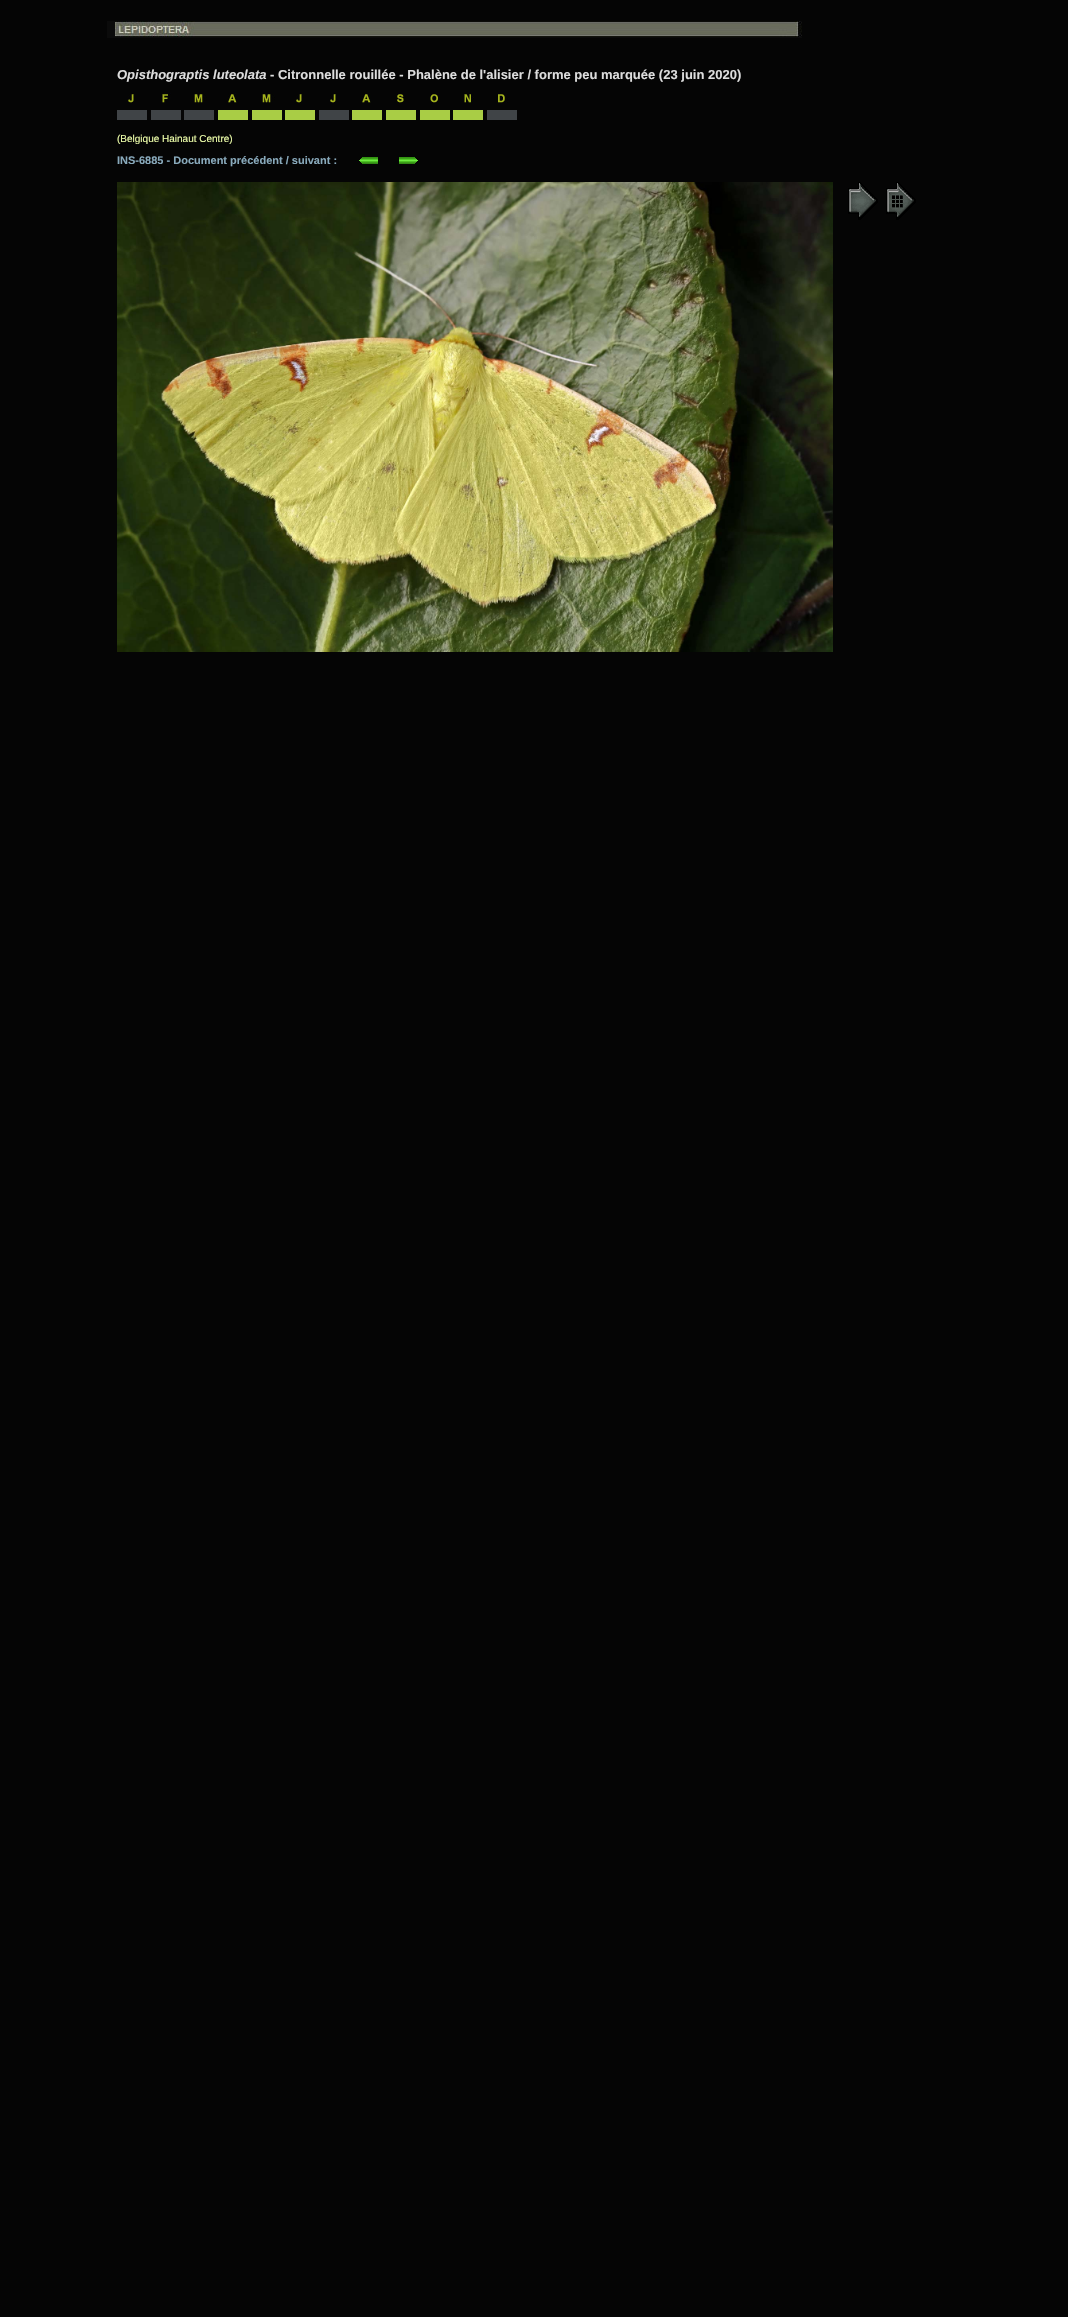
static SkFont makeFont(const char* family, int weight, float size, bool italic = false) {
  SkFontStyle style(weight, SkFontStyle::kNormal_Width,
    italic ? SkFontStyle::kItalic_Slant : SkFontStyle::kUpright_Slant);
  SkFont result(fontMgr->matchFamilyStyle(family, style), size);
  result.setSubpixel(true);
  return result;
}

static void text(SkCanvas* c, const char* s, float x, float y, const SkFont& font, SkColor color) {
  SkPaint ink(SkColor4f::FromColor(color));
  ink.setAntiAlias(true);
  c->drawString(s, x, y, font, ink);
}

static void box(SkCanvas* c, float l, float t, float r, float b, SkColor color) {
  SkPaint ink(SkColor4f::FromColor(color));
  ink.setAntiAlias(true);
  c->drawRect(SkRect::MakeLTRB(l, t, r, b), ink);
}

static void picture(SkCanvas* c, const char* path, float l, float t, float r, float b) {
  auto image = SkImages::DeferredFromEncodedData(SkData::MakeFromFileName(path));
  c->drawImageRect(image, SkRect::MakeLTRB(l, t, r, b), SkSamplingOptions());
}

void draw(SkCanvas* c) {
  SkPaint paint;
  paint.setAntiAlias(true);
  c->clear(0xff050505);
  picture(c, "img_01.png", 107, 21, 802, 38);
  SkFont face1 = makeFont("Liberation Sans", 700, 13, true);
  text(c, "Opisthograptis luteolata", 117, 79, face1, 0xffdddddd);
  SkFont face2 = makeFont("Liberation Sans", 700, 13);
  text(c, "- Citronnelle rouillée - Phalène de l'alisier / forme peu marquée (23 juin 2020)", 270, 79, face2, 0xffdddddd);
  picture(c, "img_02.png", 128, 94, 134, 103);
  picture(c, "img_03.png", 162, 93, 171, 103);
  picture(c, "img_04.png", 194, 94, 207, 103);
  picture(c, "img_05.png", 228, 93, 237, 103);
  picture(c, "img_04.png", 262, 94, 275, 103);
  picture(c, "img_02.png", 296, 94, 302, 103);
  picture(c, "img_02.png", 330, 94, 336, 103);
  picture(c, "img_05.png", 362, 93, 371, 103);
  picture(c, "img_06.png", 397, 94, 404, 103);
  picture(c, "img_07.png", 430, 94, 438, 103);
  picture(c, "img_08.png", 464, 94, 474, 103);
  picture(c, "img_09.png", 497, 94, 509, 103);
  box(c, 117, 110, 147, 120, 0xff404447);
  box(c, 151, 110, 181, 120, 0xff404447);
  box(c, 184, 110, 214, 120, 0xff404447);
  box(c, 218, 110, 248, 120, 0xffa9cd45);
  box(c, 252, 110, 282, 120, 0xffa9cd45);
  box(c, 285, 110, 315, 120, 0xffa9cd45);
  box(c, 319, 110, 349, 120, 0xff404447);
  box(c, 352, 110, 382, 120, 0xffa9cd45);
  box(c, 386, 110, 416, 120, 0xffa9cd45);
  box(c, 420, 110, 450, 120, 0xffa9cd45);
  box(c, 453, 110, 483, 120, 0xffa9cd45);
  box(c, 487, 110, 517, 120, 0xff404447);
  SkFont face3 = makeFont("Liberation Sans", 400, 10);
  text(c, "(Belgique Hainaut Centre)", 117, 142, face3, 0xffeeffaa);
  SkFont face4 = makeFont("Liberation Sans", 700, 11);
  text(c, "INS-6885 - Document précédent / suivant :", 117, 164, face4, 0xff89aabc);
  picture(c, "img_10.png", 359, 157, 378, 164);
  picture(c, "img_11.png", 399, 157, 418, 164);
  picture(c, "img_12.png", 117, 182, 833, 652);
  picture(c, "img_13.png", 848, 182, 878, 220);
  picture(c, "img_14.png", 886, 182, 916, 220);
}
